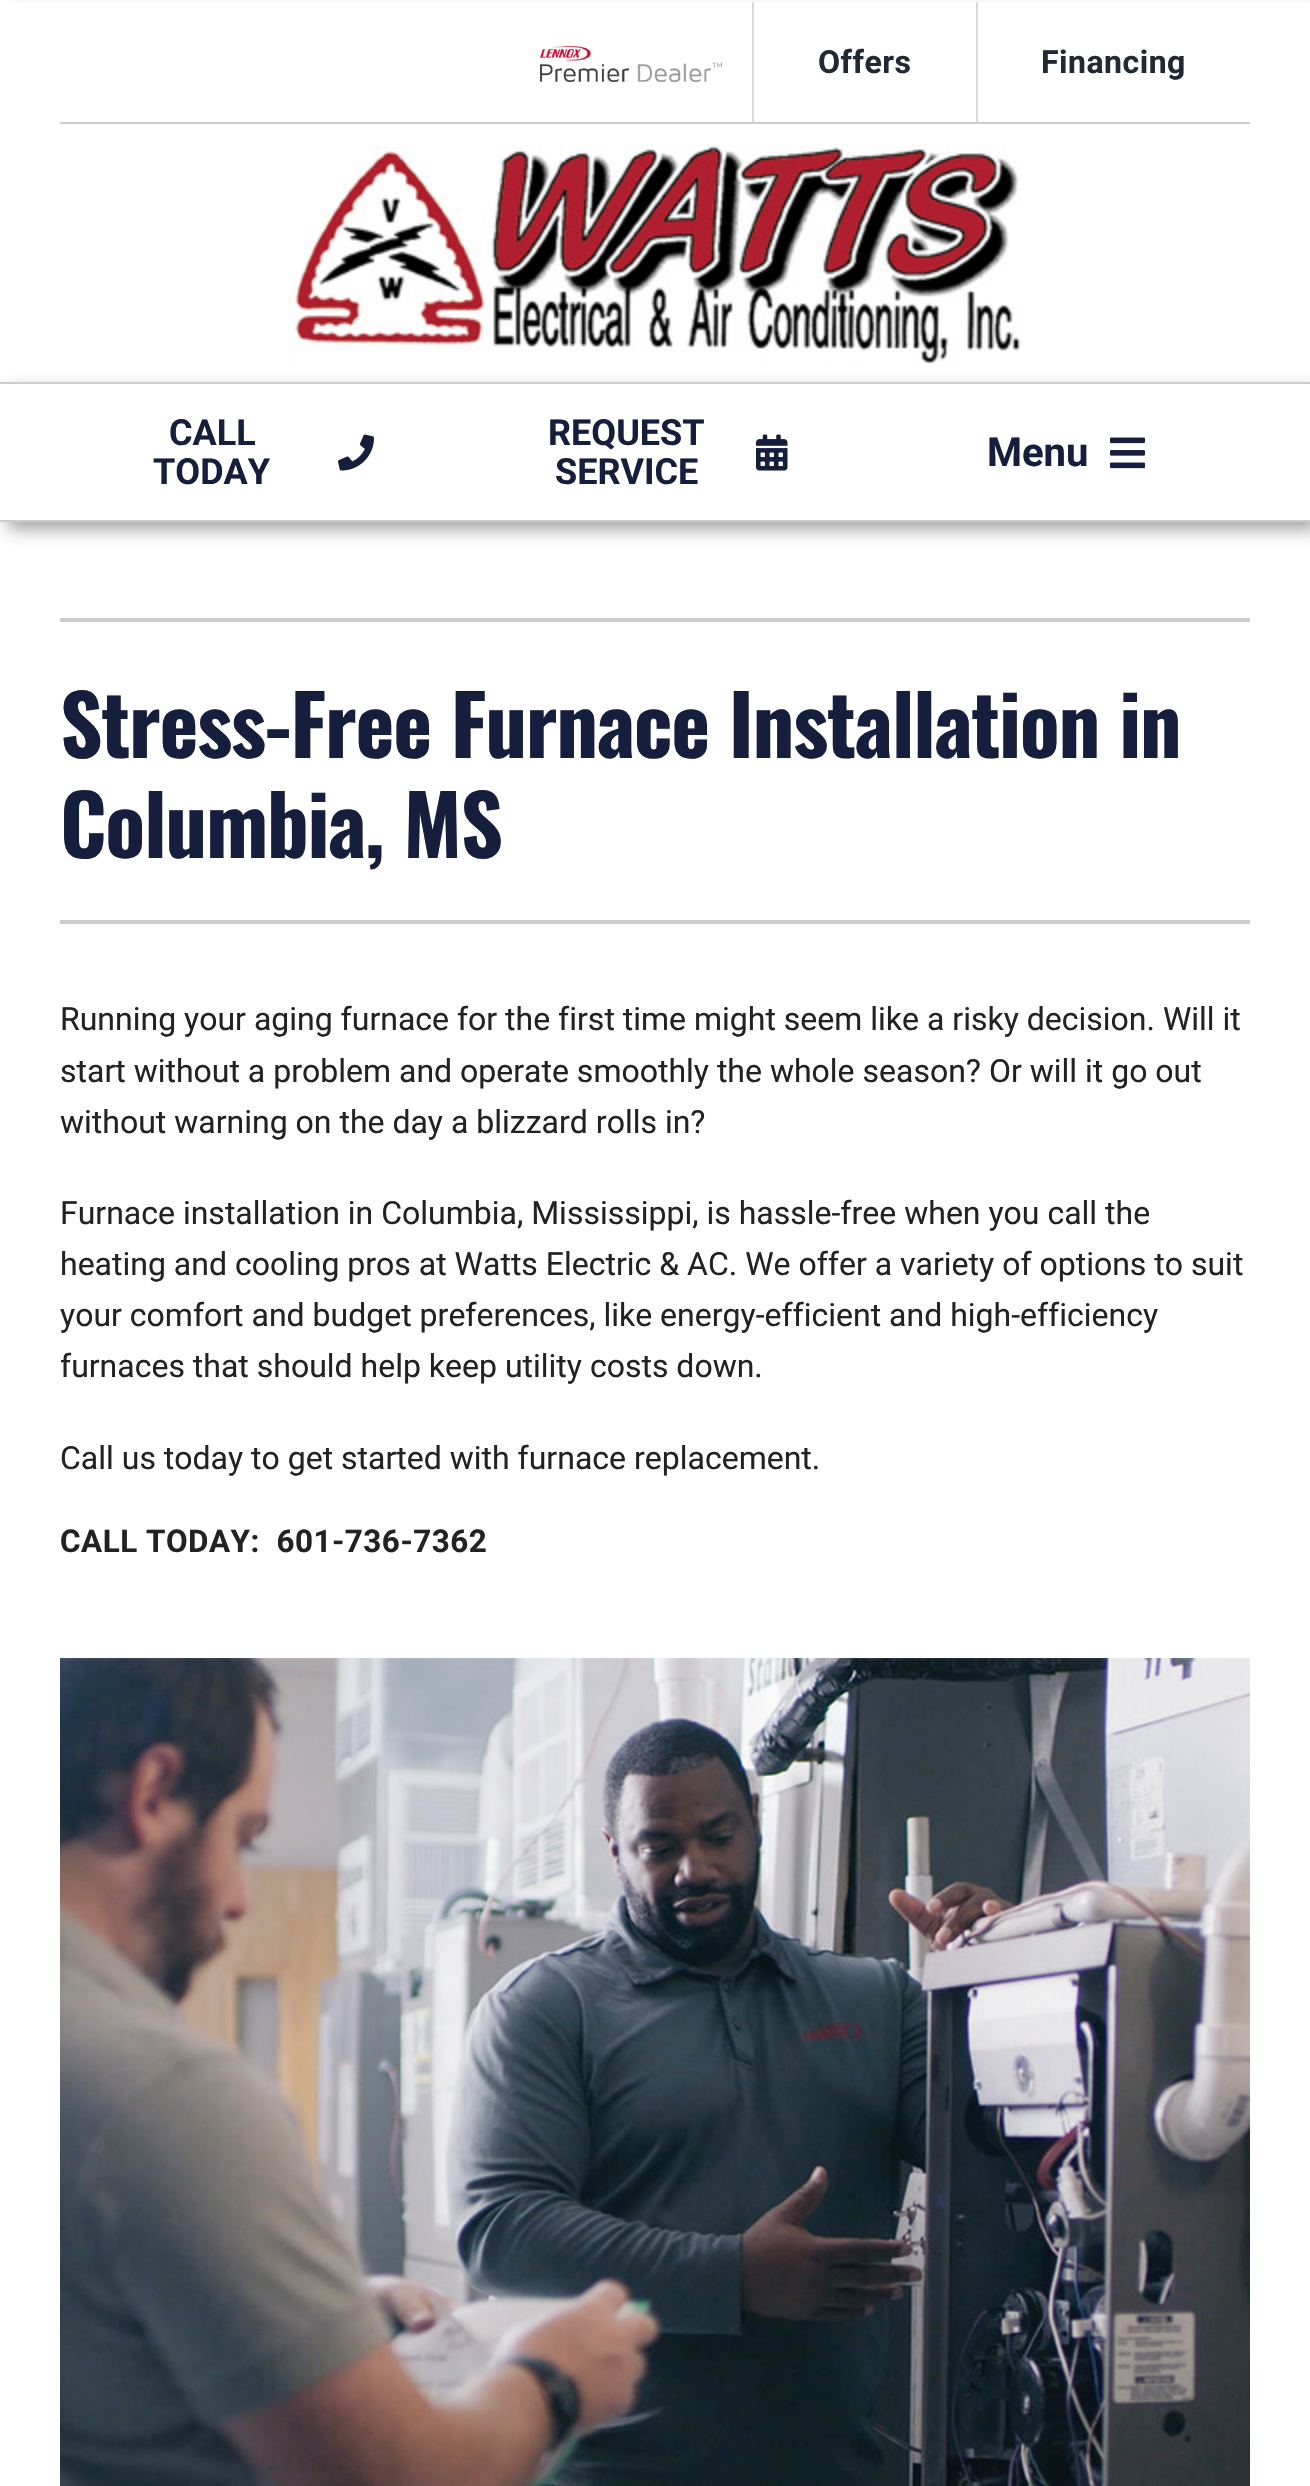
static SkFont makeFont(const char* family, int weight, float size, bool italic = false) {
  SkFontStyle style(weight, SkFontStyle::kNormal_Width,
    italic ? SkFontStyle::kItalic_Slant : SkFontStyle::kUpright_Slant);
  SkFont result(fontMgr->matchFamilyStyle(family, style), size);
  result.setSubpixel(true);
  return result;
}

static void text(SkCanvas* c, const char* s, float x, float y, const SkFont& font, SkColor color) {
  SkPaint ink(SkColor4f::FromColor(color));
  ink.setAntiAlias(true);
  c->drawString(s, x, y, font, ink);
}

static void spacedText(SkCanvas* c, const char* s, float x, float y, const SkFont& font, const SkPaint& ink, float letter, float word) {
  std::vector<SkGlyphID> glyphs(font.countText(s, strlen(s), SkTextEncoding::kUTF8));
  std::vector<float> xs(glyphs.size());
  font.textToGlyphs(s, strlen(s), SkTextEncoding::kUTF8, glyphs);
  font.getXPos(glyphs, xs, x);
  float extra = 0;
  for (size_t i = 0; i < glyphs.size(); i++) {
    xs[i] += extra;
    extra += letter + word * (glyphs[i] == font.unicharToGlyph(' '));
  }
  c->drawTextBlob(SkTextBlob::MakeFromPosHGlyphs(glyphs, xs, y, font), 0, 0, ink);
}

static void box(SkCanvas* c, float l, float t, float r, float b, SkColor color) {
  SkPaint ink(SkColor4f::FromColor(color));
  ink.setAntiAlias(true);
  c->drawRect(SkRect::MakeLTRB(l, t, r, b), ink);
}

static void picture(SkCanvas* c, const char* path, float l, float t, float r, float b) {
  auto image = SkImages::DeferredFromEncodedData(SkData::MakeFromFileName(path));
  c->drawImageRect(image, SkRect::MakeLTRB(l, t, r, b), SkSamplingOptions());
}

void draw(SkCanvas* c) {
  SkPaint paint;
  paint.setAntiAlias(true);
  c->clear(0xffffffff);
  c->save();
  c->clipRect(SkRect::MakeLTRB(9, 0, 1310, 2));
  paint.setColor(0x40212121);
  paint.setMaskFilter(SkMaskFilter::MakeBlur(kNormal_SkBlurStyle, 8));
  c->drawRect(SkRect::MakeLTRB(8, 10, 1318, 392), paint);
  paint.setMaskFilter(nullptr);
  c->restore();
  box(c, 60, 122, 1250, 124, 0xffcccccc);
  picture(c, "img_01.png", 540, 46, 722, 82);
  box(c, 752, 2, 754, 122, 0xffdbdbdb);
  SkFont face1 = makeFont("Roboto", 700, 32);
  paint.setColor(0xff212934);
  spacedText(c, "Offers", 818, 73, face1, paint, 0.5f, 0);
  box(c, 976, 2, 978, 122, 0xffdbdbdb);
  spacedText(c, "Financing", 1041, 73, face1, paint, 0.5f, 0);
  picture(c, "img_02.png", 288, 144, 1021, 364);
  paint.setColor(0x66212121);
  paint.setMaskFilter(SkMaskFilter::MakeBlur(kNormal_SkBlurStyle, 8));
  c->drawRect(SkRect::MakeLTRB(8, 390, 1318, 530), paint);
  paint.setMaskFilter(nullptr);
  box(c, 0, 384, 1310, 520, 0xffffffff);
  box(c, 0, 382, 1310, 384, 0xffcccccc);
  box(c, 0, 520, 1310, 522, 0xffcccccc);
  SkFont face2 = makeFont("Roboto", 700, 36);
  text(c, "CALL", 169, 445, face2, 0xff151e3d);
  text(c, "TODAY", 153, 484, face2, 0xff151e3d);
  picture(c, "img_03.png", 338, 434, 374, 471);
  text(c, "REQUEST", 548, 445, face2, 0xff151e3d);
  text(c, "SERVICE", 555, 484, face2, 0xff151e3d);
  picture(c, "img_04.png", 756, 434, 788, 471);
  SkFont face3 = makeFont("Roboto", 700, 40);
  text(c, "Menu", 987, 466, face3, 0xff151e3d);
  picture(c, "img_05.png", 1110, 437, 1145, 469);
  box(c, 60, 618, 1250, 622, 0xffcccccc);
  SkFont face4 = makeFont("Oswald", 700, 82.75f);
  paint.setColor(0xff151e3d);
  spacedText(c, "Stress-Free Furnace Installation in", 60, 758, face4, paint, -1.25f, 0);
  spacedText(c, "Columbia, MS", 60, 858, face4, paint, -1.25f, 0);
  box(c, 60, 920, 1250, 924, 0xffcccccc);
  SkFont face5 = makeFont("Roboto", 400, 32);
  text(c, "Running your aging furnace for the first time might seem like a risky decision. Will it", 60, 1030, face5, 0xff222222);
  text(c, "start without a problem and operate smoothly the whole season? Or will it go out", 60, 1082, face5, 0xff222222);
  text(c, "without warning on the day a blizzard rolls in?", 60, 1133, face5, 0xff222222);
  text(c, "Furnace installation in Columbia, Mississippi, is hassle-free when you call the", 60, 1224, face5, 0xff222222);
  text(c, "heating and cooling pros at Watts Electric & AC. We offer a variety of options to suit", 60, 1275, face5, 0xff222222);
  text(c, "your comfort and budget preferences, like energy-efficient and high-efficiency", 60, 1326, face5, 0xff222222);
  text(c, "furnaces that should help keep utility costs down.", 60, 1377, face5, 0xff222222);
  text(c, "Call us today to get started with furnace replacement.", 60, 1469, face5, 0xff222222);
  SkFont face6 = makeFont("Roboto", 700, 31.4f);
  paint.setColor(0xff222222);
  spacedText(c, "CALL TODAY:  601-736-7362", 60, 1552, face6, paint, 0.5f, 0);
  picture(c, "img_06.png", 60, 1658, 1250, 2486);
}
